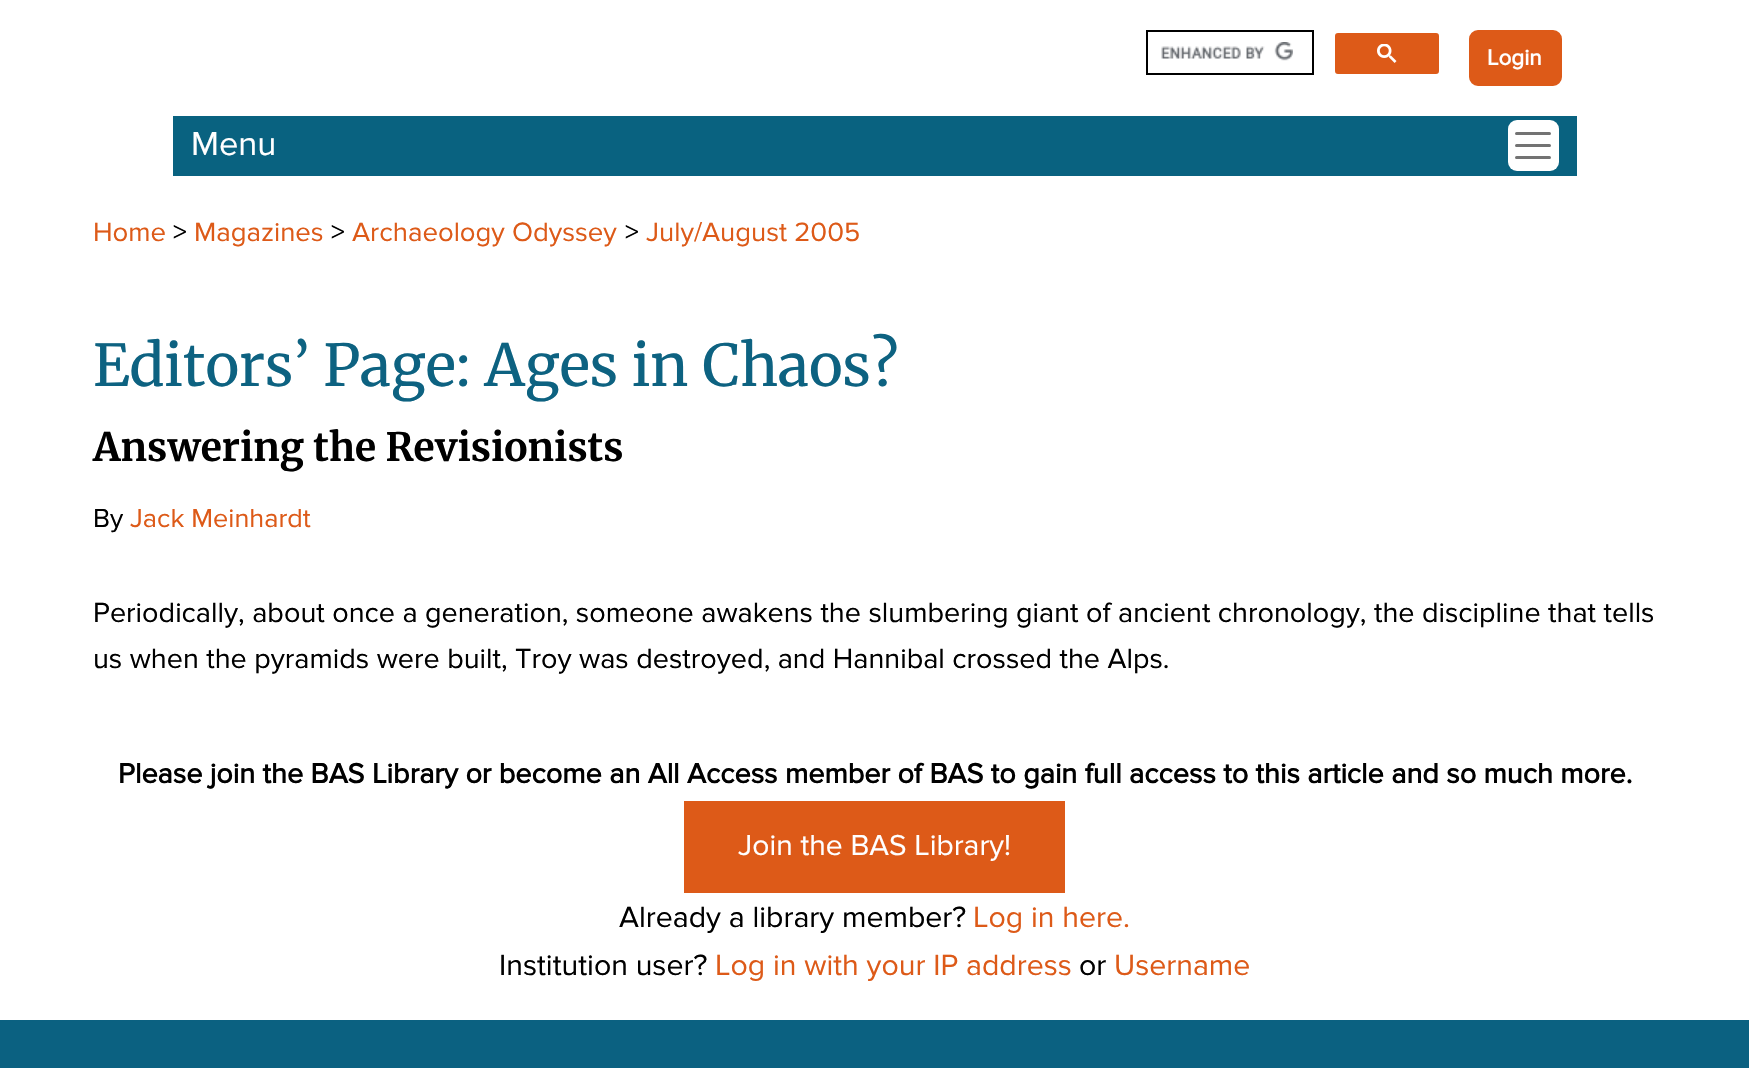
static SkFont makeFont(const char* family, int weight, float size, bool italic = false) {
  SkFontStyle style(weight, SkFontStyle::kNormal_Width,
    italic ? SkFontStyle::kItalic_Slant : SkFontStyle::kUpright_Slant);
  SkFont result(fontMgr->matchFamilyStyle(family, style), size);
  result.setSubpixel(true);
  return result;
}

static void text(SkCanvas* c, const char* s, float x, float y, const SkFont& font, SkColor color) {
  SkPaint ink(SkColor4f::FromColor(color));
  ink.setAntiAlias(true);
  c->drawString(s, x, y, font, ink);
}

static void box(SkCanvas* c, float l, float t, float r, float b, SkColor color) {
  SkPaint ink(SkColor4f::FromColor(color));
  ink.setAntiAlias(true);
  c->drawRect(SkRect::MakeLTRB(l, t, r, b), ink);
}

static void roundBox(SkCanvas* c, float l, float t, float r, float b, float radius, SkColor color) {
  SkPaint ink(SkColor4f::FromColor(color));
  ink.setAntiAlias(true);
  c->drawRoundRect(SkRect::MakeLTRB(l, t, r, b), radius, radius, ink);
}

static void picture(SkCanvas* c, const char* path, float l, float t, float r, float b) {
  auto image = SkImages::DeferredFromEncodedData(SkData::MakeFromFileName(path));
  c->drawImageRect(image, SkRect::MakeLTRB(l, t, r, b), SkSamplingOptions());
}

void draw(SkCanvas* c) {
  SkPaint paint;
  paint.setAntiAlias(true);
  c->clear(0xffffffff);
  paint.setStyle(SkPaint::kStroke_Style);
  paint.setStrokeWidth(2);
  paint.setColor(0xff000000);
  c->drawRect(SkRect::MakeLTRB(1147, 31, 1313, 74), paint);
  picture(c, "img_01.png", 1161, 42, 1293, 61);
  paint.setStyle(SkPaint::kFill_Style);
  paint.setColor(0xffdd5a18);
  c->drawRoundRect(SkRect::MakeLTRB(1336, 34, 1438, 73), 2, 2, paint);
  paint.setStyle(SkPaint::kStroke_Style);
  c->drawRoundRect(SkRect::MakeLTRB(1336, 34, 1438, 73), 2, 2, paint);
  picture(c, "img_02.png", 1377, 44, 1397, 63);
  paint.setStyle(SkPaint::kFill_Style);
  c->drawRoundRect(SkRect::MakeLTRB(1470, 31, 1561, 85), 8, 8, paint);
  paint.setStyle(SkPaint::kStroke_Style);
  c->drawRoundRect(SkRect::MakeLTRB(1470, 31, 1561, 85), 8, 8, paint);
  SkFont face1 = makeFont("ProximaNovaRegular", 700, 22.5f);
  text(c, "Login", 1487, 65, face1, 0xffffffff);
  box(c, 173, 116, 1577, 176, 0xff096280);
  SkFont face2 = makeFont("ProximaNovaRegular", 400, 34.5f);
  text(c, "Menu", 191, 155, face2, 0xffffffff);
  roundBox(c, 1508, 120, 1559, 171, 9, 0xffffffff);
  paint.setStrokeWidth(3);
  paint.setStrokeCap(SkPaint::kRound_Cap);
  paint.setColor(0xff737373);
  c->drawPath(SkPathBuilder().moveTo(1516.5f, 133.5f).lineTo(1549.5f, 133.5f).moveTo(1516.5f, 145.5f).lineTo(1549.5f, 145.5f).moveTo(1516.5f, 157.5f).lineTo(1549.5f, 157.5f).detach(), paint);
  SkFont face3 = makeFont("ProximaNovaRegular", 400, 27.5f);
  text(c, "Home", 93, 241, face3, 0xffdd5a18);
  text(c, ">", 173, 241, face3, 0xff000000);
  text(c, "Magazines", 194, 241, face3, 0xffdd5a18);
  text(c, ">", 331, 241, face3, 0xff000000);
  text(c, "Archaeology Odyssey", 352, 241, face3, 0xffdd5a18);
  text(c, ">", 625, 241, face3, 0xff000000);
  text(c, "July/August 2005", 646, 241, face3, 0xffdd5a18);
  SkFont face4 = makeFont("Merriweather", 400, 57.6f);
  text(c, "Editors’ Page: Ages in Chaos?", 93, 386, face4, 0xff0d6281);
  SkFont face5 = makeFont("Merriweather", 700, 39);
  text(c, "Answering the Revisionists", 93, 461, face5, 0xff000000);
  SkFont face6 = makeFont("ProximaNovaRegular", 400, 27);
  text(c, "By", 93, 527, face6, 0xff000000);
  text(c, "Jack Meinhardt", 130, 527, face6, 0xffdd5a18);
  SkFont face7 = makeFont("ProximaNovaRegular", 400, 28.8f);
  text(c, "Periodically, about once a generation, someone awakens the slumbering giant of ancient chronology, the discipline that tells", 93, 622, face7, 0xff000000);
  text(c, "us when the pyramids were built, Troy was destroyed, and Hannibal crossed the Alps.", 93, 668, face7, 0xff000000);
  SkFont face8 = makeFont("ProximaNovaRegular", 700, 28.8f);
  text(c, "Please join the BAS Library or become an All Access member of BAS to gain full access to this article and so much more.", 118, 783, face8, 0xff000000);
  box(c, 684, 801, 1065, 893, 0xffdd5a18);
  SkFont face9 = makeFont("ProximaNovaRegular", 400, 30);
  text(c, "Join the BAS Library!", 738, 855, face9, 0xffffffff);
  SkFont face10 = makeFont("ProximaNovaRegular", 400, 30.25f);
  text(c, "Already a library member?", 619, 927, face10, 0xff000000);
  text(c, "Log in here.", 973, 927, face10, 0xffdd5a18);
  text(c, "Institution user?", 499, 975, face10, 0xff000000);
  text(c, "Log in with your IP address", 715, 975, face10, 0xffdd5a18);
  text(c, "or", 1079, 975, face10, 0xff000000);
  text(c, "Username", 1114, 975, face10, 0xffdd5a18);
  box(c, 0, 1020, 1749, 1068, 0xff0b6181);
}
